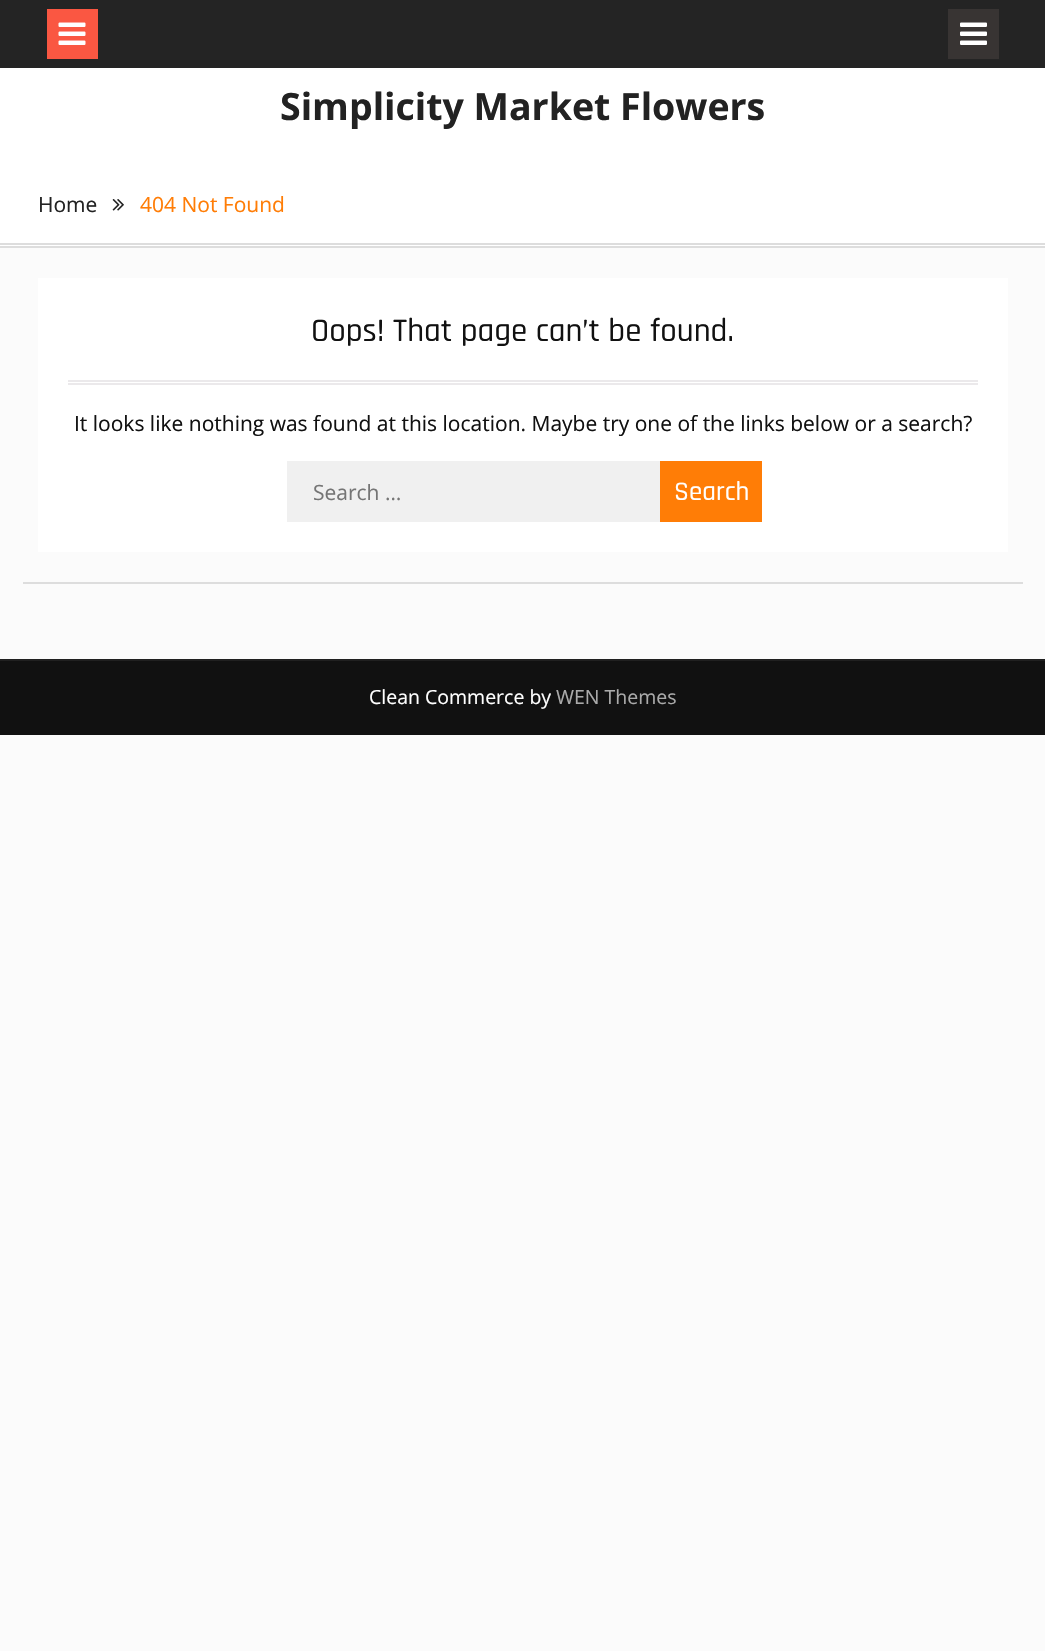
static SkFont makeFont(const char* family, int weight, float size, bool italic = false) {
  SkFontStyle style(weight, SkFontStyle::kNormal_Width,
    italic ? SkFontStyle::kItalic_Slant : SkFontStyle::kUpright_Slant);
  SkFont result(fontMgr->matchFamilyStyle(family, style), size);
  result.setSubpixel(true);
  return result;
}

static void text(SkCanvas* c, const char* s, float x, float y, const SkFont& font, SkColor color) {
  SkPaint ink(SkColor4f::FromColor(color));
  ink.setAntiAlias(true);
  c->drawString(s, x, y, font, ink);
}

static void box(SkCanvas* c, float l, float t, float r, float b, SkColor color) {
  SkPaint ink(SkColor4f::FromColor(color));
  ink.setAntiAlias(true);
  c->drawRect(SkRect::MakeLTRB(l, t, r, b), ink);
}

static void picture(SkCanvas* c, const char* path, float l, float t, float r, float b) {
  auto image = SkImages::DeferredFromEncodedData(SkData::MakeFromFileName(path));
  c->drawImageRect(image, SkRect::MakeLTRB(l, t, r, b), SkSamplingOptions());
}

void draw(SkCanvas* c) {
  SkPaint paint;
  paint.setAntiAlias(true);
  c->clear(0xfffbfbfb);
  box(c, 0, 0, 1045, 68, 0xff242424);
  box(c, 47, 9, 98, 59, 0xfffa5742);
  picture(c, "img_01.png", 58, 22, 86, 45);
  box(c, 948, 9, 999, 59, 0xff383433);
  picture(c, "img_02.png", 960, 22, 987, 45);
  box(c, 0, 68, 1045, 246, 0xffffffff);
  SkFont face1 = makeFont("Open Sans", 700, 37.5f);
  text(c, "Simplicity Market Flowers", 280, 120, face1, 0xff222222);
  box(c, 0, 243, 1045, 245, 0xffdddddd);
  box(c, 0, 246, 1045, 248, 0xffdddddd);
  SkFont face2 = makeFont("Open Sans", 400, 21);
  text(c, "Home", 38, 212, face2, 0xff222222);
  picture(c, "img_03.png", 112, 199, 124, 211);
  text(c, "404 Not Found", 140, 212, face2, 0xffff7d06);
  box(c, 23, 582, 1023, 584, 0xffdddddd);
  box(c, 38, 278, 1008, 552, 0xffffffff);
  box(c, 68, 380, 978, 382, 0xffebe9eb);
  box(c, 68, 383, 978, 385, 0xffebe9eb);
  SkFont face3 = makeFont("Rajdhani", 500, 33);
  text(c, "Oops! That page can’t be found.", 311, 341, face3, 0xff111111);
  text(c, "It looks like nothing was found at this location. Maybe try one of the links below or a search?", 74, 431, face2, 0xff111111);
  box(c, 287, 461, 660, 522, 0xfff0f0f0);
  text(c, "Search …", 313, 500, face2, 0xff757575);
  box(c, 660, 461, 762, 522, 0xffff7d06);
  SkFont face4 = makeFont("Rajdhani", 500, 27);
  text(c, "Search", 674, 500, face4, 0xffffffff);
  box(c, 0, 661, 1045, 735, 0xff111111);
  box(c, 0, 659, 1045, 661, 0xff202020);
  SkFont face5 = makeFont("Open Sans", 400, 19.5f);
  text(c, "Clean Commerce by", 369, 704, face5, 0xffffffff);
  text(c, "WEN Themes", 556, 704, face5, 0xffaaaaaa);
}
